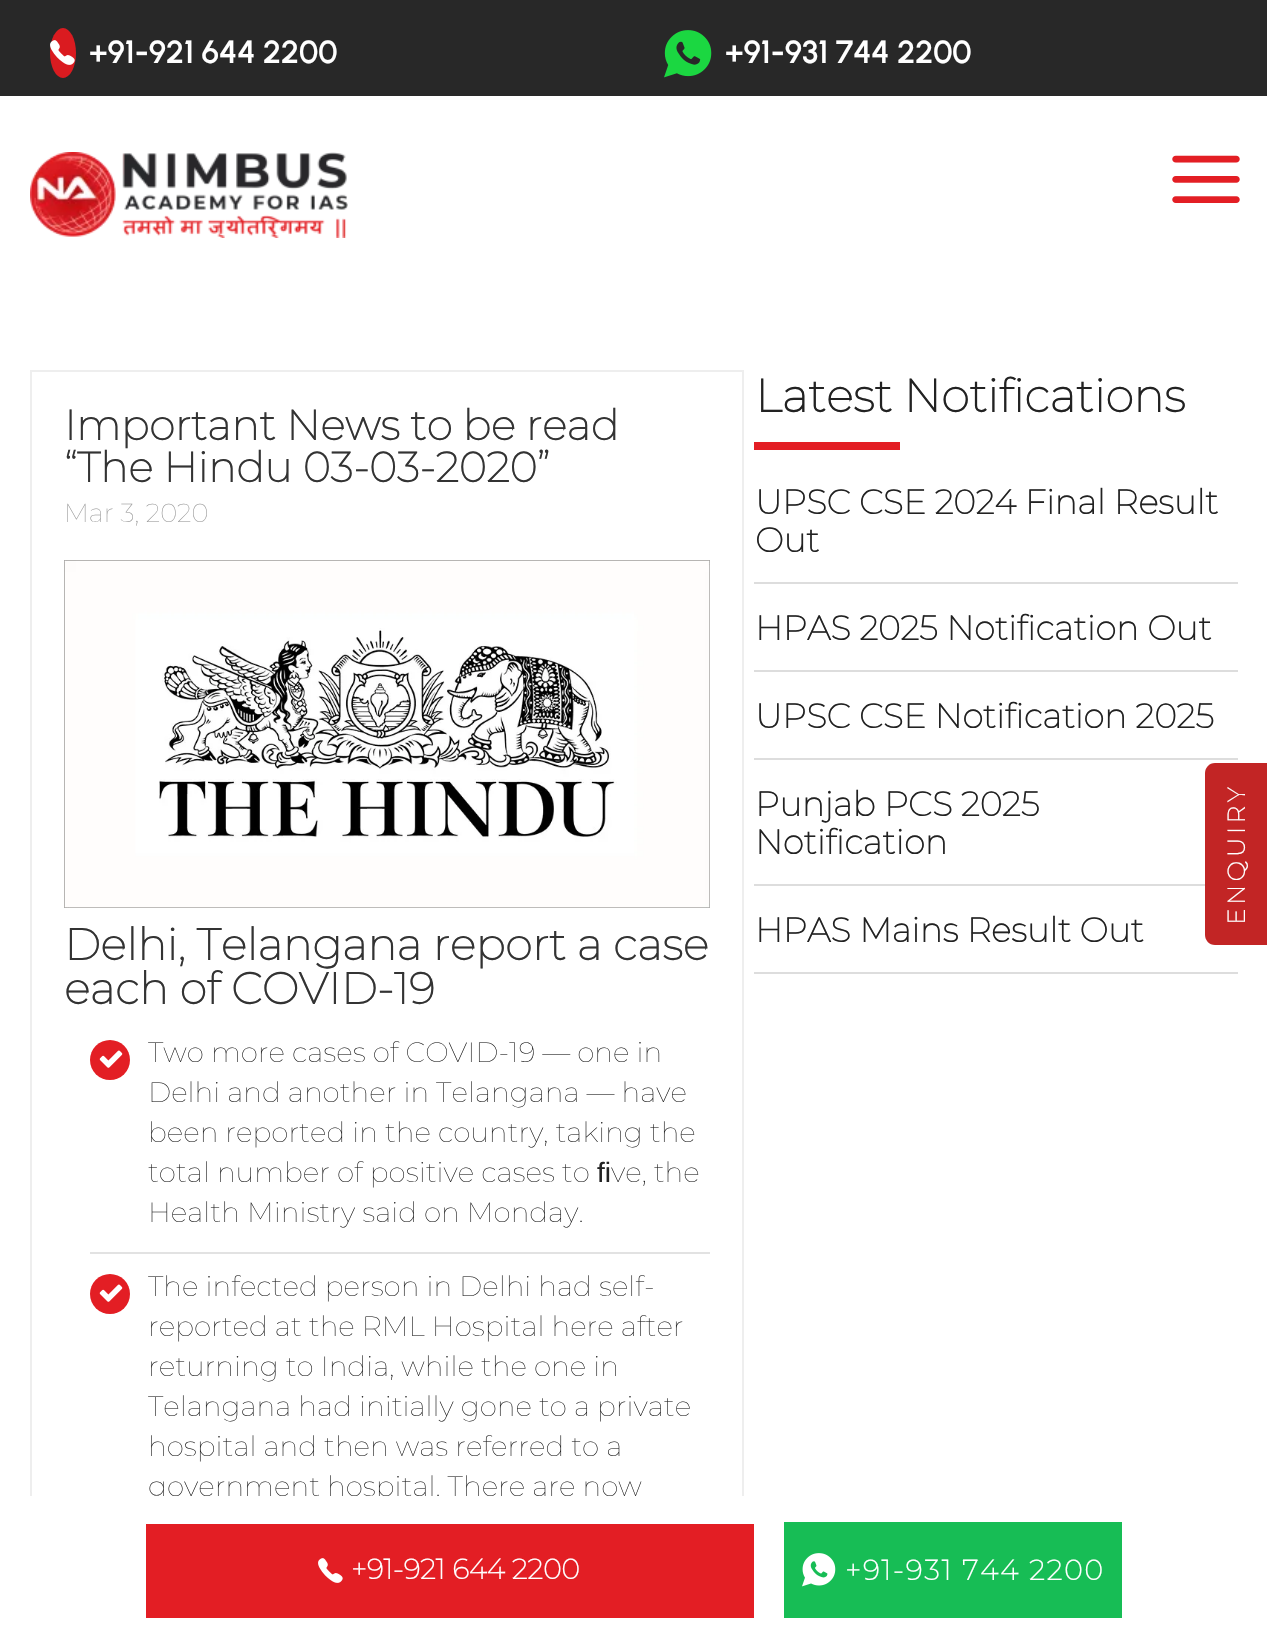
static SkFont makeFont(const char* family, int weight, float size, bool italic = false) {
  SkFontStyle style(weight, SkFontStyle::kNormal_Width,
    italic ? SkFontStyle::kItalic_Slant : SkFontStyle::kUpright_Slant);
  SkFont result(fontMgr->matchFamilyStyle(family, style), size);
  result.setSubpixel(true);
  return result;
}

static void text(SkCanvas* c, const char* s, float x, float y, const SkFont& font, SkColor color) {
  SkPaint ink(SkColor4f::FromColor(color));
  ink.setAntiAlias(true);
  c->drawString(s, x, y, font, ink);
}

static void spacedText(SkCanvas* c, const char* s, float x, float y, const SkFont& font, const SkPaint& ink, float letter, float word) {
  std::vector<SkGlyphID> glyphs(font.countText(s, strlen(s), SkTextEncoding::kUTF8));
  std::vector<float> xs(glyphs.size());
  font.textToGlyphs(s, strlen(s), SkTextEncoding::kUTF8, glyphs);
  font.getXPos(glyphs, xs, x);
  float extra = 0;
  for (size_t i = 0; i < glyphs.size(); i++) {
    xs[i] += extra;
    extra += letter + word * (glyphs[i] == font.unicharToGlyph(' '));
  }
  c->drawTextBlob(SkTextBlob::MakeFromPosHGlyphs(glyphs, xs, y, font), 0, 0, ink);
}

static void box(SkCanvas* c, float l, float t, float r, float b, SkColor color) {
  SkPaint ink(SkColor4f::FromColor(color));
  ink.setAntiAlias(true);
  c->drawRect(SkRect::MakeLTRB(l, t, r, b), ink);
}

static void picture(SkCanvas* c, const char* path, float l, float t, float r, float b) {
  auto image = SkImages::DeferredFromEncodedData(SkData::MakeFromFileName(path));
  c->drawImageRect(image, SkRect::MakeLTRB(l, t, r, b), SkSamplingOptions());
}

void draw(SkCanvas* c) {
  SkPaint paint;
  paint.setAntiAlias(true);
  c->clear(0xffffffff);
  box(c, 0, 0, 1267, 96, 0xff282828);
  paint.setColor(0xffda1b20);
  c->drawOval(SkRect::MakeLTRB(50, 28, 76, 78), paint);
  picture(c, "img_01.png", 50, 40, 75, 65);
  SkFont face1 = makeFont("Urbanist", 600, 32);
  text(c, "+91-921 644 2200", 89, 63, face1, 0xffffffff);
  picture(c, "img_02.png", 664, 30, 712, 78);
  text(c, "+91-931 744 2200", 725, 63, face1, 0xffffffff);
  picture(c, "img_03.png", 30, 152, 348, 238);
  picture(c, "img_04.png", 1172, 155, 1240, 203);
  paint.setStyle(SkPaint::kStroke_Style);
  paint.setStrokeWidth(2);
  paint.setColor(0xffeeeeee);
  c->drawRect(SkRect::MakeLTRB(31, 371, 743, 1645), paint);
  SkFont face2 = makeFont("Montserrat", 700, 42);
  text(c, "Important News to be read", 64, 440, face2, 0xff333333);
  text(c, "“The Hindu 03-03-2020”", 64, 482, face2, 0xff333333);
  SkFont face3 = makeFont("Montserrat", 100, 26);
  text(c, "Mar 3, 2020", 64, 522, face3, 0xff999999);
  picture(c, "img_05.png", 64, 560, 710, 908);
  SkFont face4 = makeFont("Montserrat", 700, 44);
  text(c, "Delhi, Telangana report a case", 64, 960, face4, 0xff333333);
  text(c, "each of COVID-19", 64, 1004, face4, 0xff333333);
  box(c, 90, 1252, 710, 1254, 0xffe2e2e2);
  paint.setStyle(SkPaint::kFill_Style);
  paint.setColor(0xffe31e24);
  c->drawCircle(110, 1060, 20, paint);
  picture(c, "img_06.png", 99, 1050, 123, 1068);
  SkFont face5 = makeFont("Montserrat", 100, 28);
  text(c, "Two more cases of COVID-19 — one in", 148, 1062, face5, 0xff222222);
  text(c, "Delhi and another in Telangana — have", 148, 1102, face5, 0xff222222);
  text(c, "been reported in the country, taking the", 148, 1142, face5, 0xff222222);
  text(c, "total number of positive cases to", 148, 1182, face5, 0xff222222);
  SkFont face6 = makeFont("Liberation Sans", 400, 28);
  text(c, "ﬁ", 597, 1182, face6, 0xff222222);
  text(c, "ve, the", 611, 1182, face5, 0xff222222);
  text(c, "Health Ministry said on Monday.", 148, 1222, face5, 0xff222222);
  c->drawCircle(110, 1294, 20, paint);
  picture(c, "img_06.png", 99, 1284, 123, 1302);
  text(c, "The infected person in Delhi had self-", 148, 1296, face5, 0xff222222);
  text(c, "reported at the RML Hospital here after", 148, 1336, face5, 0xff222222);
  text(c, "returning to India, while the one in", 148, 1376, face5, 0xff222222);
  text(c, "Telangana had initially gone to a private", 148, 1416, face5, 0xff222222);
  text(c, "hospital and then was referred to a", 148, 1456, face5, 0xff222222);
  text(c, "government hospital. There are now", 148, 1496, face5, 0xff222222);
  SkFont face7 = makeFont("Montserrat", 700, 46);
  text(c, "Latest Notifications", 755, 412, face7, 0xff222222);
  box(c, 754, 442, 900, 450, 0xffe31e24);
  box(c, 754, 582, 1238, 584, 0xffdddddd);
  SkFont face8 = makeFont("Montserrat", 700, 34);
  text(c, "UPSC CSE 2024 Final Result", 755, 514, face8, 0xff222222);
  text(c, "Out", 755, 552, face8, 0xff222222);
  box(c, 754, 670, 1238, 672, 0xffdddddd);
  text(c, "HPAS 2025 Notification Out", 755, 640, face8, 0xff222222);
  box(c, 754, 758, 1238, 760, 0xffdddddd);
  text(c, "UPSC CSE Notification 2025", 755, 728, face8, 0xff222222);
  box(c, 754, 884, 1205, 886, 0xffdddddd);
  text(c, "Punjab PCS 2025", 755, 816, face8, 0xff222222);
  text(c, "Notification", 755, 854, face8, 0xff222222);
  box(c, 754, 972, 1238, 974, 0xffdddddd);
  text(c, "HPAS Mains Result Out", 755, 942, face8, 0xff222222);
  paint.setColor(0xffc22525);
  c->drawPath(SkPathBuilder().moveTo(1205, 935).lineTo(1205, 773).cubicTo(1205, 768, 1209, 763, 1215, 763).lineTo(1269, 763).lineTo(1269, 945).lineTo(1215, 945).cubicTo(1209, 945, 1205, 940, 1205, 935).close().detach(), paint);
  SkFont face9 = makeFont("Montserrat", 700, 24);
  paint.setColor(0xffffffff);
  c->save();
  c->rotate(-90, 1245, 925);
  spacedText(c, "ENQUIRY", 1245, 925, face9, paint, 4, 0);
  c->restore();
  box(c, 30, 1496, 744, 1644, 0xffffffff);
  box(c, 146, 1524, 754, 1618, 0xffe31e24);
  picture(c, "img_07.png", 318, 1558, 343, 1583);
  SkFont face10 = makeFont("Montserrat", 700, 28);
  text(c, "+91-921 644 2200", 351, 1579, face10, 0xffffffff);
  box(c, 784, 1522, 1122, 1618, 0xff17bd55);
  picture(c, "img_08.png", 802, 1553, 836, 1587);
  spacedText(c, "+91-931 744 2200", 845, 1580, face10, paint, 2, 0);
}
